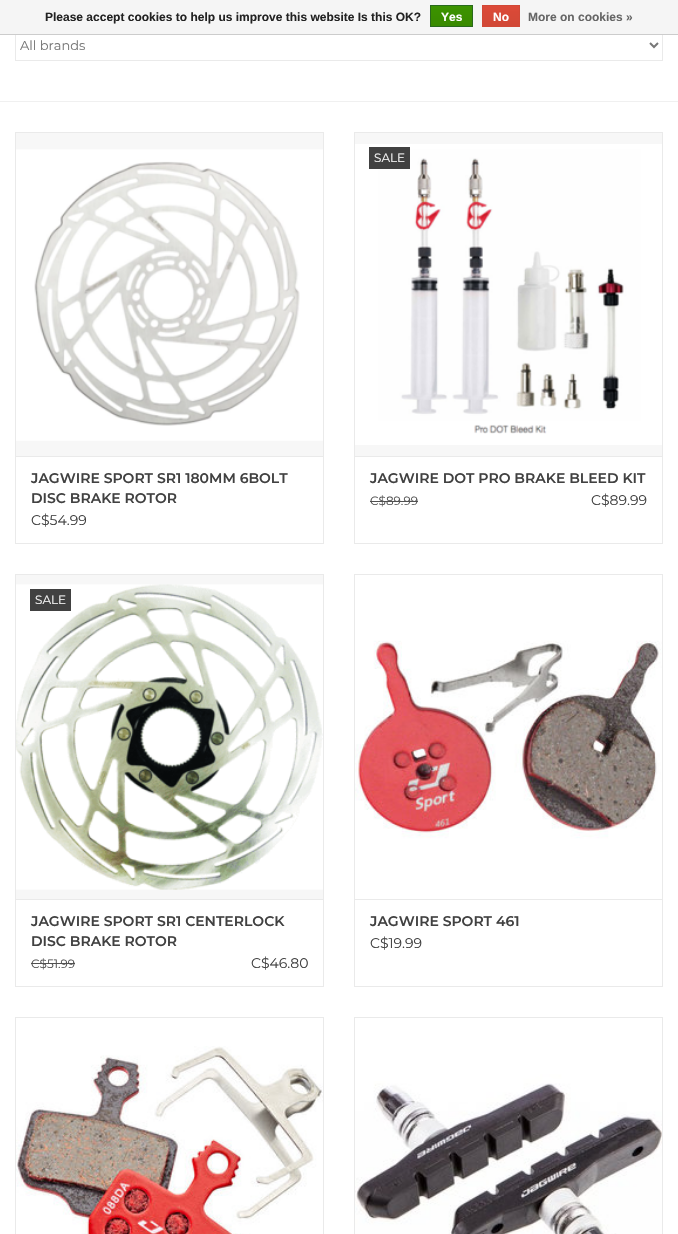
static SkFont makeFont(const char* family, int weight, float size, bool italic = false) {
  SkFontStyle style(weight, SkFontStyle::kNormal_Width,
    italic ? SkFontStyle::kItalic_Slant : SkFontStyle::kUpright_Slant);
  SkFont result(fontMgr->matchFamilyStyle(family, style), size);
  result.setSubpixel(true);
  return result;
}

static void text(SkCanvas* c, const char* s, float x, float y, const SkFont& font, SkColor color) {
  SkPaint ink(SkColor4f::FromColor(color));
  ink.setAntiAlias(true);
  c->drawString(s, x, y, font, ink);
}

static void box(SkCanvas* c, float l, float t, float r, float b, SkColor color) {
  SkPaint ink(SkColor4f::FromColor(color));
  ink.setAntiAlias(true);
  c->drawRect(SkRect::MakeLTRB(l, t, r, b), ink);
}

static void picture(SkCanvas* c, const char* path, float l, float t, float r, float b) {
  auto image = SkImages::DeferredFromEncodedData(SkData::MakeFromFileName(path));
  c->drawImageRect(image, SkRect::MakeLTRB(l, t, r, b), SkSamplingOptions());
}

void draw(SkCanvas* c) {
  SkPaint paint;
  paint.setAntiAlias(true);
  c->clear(0xffffffff);
  paint.setStyle(SkPaint::kStroke_Style);
  paint.setStrokeWidth(1);
  paint.setColor(0xffeaeaea);
  c->drawRect(SkRect::MakeLTRB(15.5f, 29.5f, 662.5f, 60.5f), paint);
  box(c, 0, 0, 678, 34, 0xfff5f5f5);
  box(c, 0, 34, 678, 35, 0xffcccccc);
  SkFont face1 = makeFont("Liberation Sans", 700, 12);
  text(c, "Please accept cookies to help us improve this website Is this OK?", 45, 21, face1, 0xff222222);
  paint.setStyle(SkPaint::kFill_Style);
  {
    const SkColor colors[] = {0xff3c9300, 0xff398a00};
    const float stops[] = {0, 1};
    const SkPoint ends[] = {{452, 6}, {452, 26}};
    paint.setShader(SkGradientShader::MakeLinear(ends, colors, stops, 2, SkTileMode::kClamp));
    paint.setAlpha(255);
  }
  c->drawRect(SkRect::MakeLTRB(431, 6, 472, 26), paint);
  paint.setStyle(SkPaint::kStroke_Style);
  paint.setShader(nullptr);
  paint.setColor(0xff29691d);
  c->drawRect(SkRect::MakeLTRB(430.5f, 5.5f, 472.5f, 26.5f), paint);
  text(c, "Yes", 441, 21, face1, 0xffffffff);
  paint.setStyle(SkPaint::kFill_Style);
  {
    const SkColor colors[] = {0xffdc4a38, 0xffd14836};
    const float stops[] = {0, 1};
    const SkPoint ends[] = {{501, 6}, {501, 26}};
    paint.setShader(SkGradientShader::MakeLinear(ends, colors, stops, 2, SkTileMode::kClamp));
    paint.setAlpha(255);
  }
  c->drawRect(SkRect::MakeLTRB(483, 6, 519, 26), paint);
  paint.setStyle(SkPaint::kStroke_Style);
  paint.setShader(nullptr);
  paint.setColor(0xffd14836);
  c->drawRect(SkRect::MakeLTRB(482.5f, 5.5f, 519.5f, 26.5f), paint);
  text(c, "No", 493, 21, face1, 0xffffffff);
  text(c, "More on cookies »", 528, 21, face1, 0xff666666);
  box(c, 0, 101, 678, 102, 0xfff0f0f0);
  paint.setStrokeWidth(2);
  paint.setColor(0xff777777);
  c->drawPath(SkPathBuilder().moveTo(650, 43).lineTo(654, 47).lineTo(658, 43).detach(), paint);
  SkFont face2 = makeFont("Montserrat", 400, 13);
  text(c, "All brands", 20, 50, face2, 0xff777777);
  box(c, 16, 133, 323, 456, 0xfff7f7f7);
  box(c, 15, 132, 324, 133, 0xffeaeaea);
  box(c, 323, 132, 324, 456, 0xffeaeaea);
  box(c, 15, 132, 16, 456, 0xffeaeaea);
  picture(c, "img_01.png", 16, 149, 323, 441);
  paint.setStrokeWidth(1);
  paint.setColor(0xffeaeaea);
  c->drawRect(SkRect::MakeLTRB(15.5f, 456.5f, 323.5f, 543.5f), paint);
  SkFont face3 = makeFont("Montserrat", 600, 14);
  text(c, "JAGWIRE SPORT SR1 180MM 6BOLT", 31, 483, face3, 0xff414141);
  text(c, "DISC BRAKE ROTOR", 31, 503, face3, 0xff414141);
  SkFont face4 = makeFont("Montserrat", 400, 14);
  text(c, "C$54.99", 31, 525, face4, 0xff414141);
  box(c, 355, 133, 662, 456, 0xfff7f7f7);
  box(c, 354, 132, 663, 133, 0xffeaeaea);
  box(c, 662, 132, 663, 456, 0xffeaeaea);
  box(c, 354, 132, 355, 456, 0xffeaeaea);
  picture(c, "img_02.png", 355, 144, 662, 445);
  box(c, 369, 147, 410, 169, 0xff414141);
  SkFont face5 = makeFont("Montserrat", 400, 12);
  text(c, "SALE", 374, 162, face5, 0xfff7f7f7);
  c->drawRect(SkRect::MakeLTRB(354.5f, 456.5f, 662.5f, 543.5f), paint);
  text(c, "JAGWIRE DOT PRO BRAKE BLEED KIT", 370, 483, face3, 0xff414141);
  text(c, "C$89.99", 370, 505, face5, 0xff505050);
  box(c, 370, 501, 418, 502, 0xff505050);
  text(c, "C$89.99", 591, 505, face4, 0xff414141);
  box(c, 16, 575, 323, 899, 0xfff7f7f7);
  box(c, 15, 574, 324, 575, 0xffeaeaea);
  box(c, 323, 574, 324, 899, 0xffeaeaea);
  box(c, 15, 574, 16, 899, 0xffeaeaea);
  picture(c, "img_03.png", 16, 584, 323, 890);
  box(c, 30, 589, 71, 611, 0xff414141);
  text(c, "SALE", 35, 604, face5, 0xfff7f7f7);
  c->drawRect(SkRect::MakeLTRB(15.5f, 899.5f, 323.5f, 986.5f), paint);
  text(c, "JAGWIRE SPORT SR1 CENTERLOCK", 31, 926, face3, 0xff414141);
  text(c, "DISC BRAKE ROTOR", 31, 946, face3, 0xff414141);
  text(c, "C$51.99", 31, 968, face5, 0xff505050);
  box(c, 31, 963, 75, 964, 0xff505050);
  text(c, "C$46.80", 251, 968, face4, 0xff414141);
  box(c, 354, 574, 663, 575, 0xffeaeaea);
  box(c, 662, 574, 663, 899, 0xffeaeaea);
  box(c, 354, 574, 355, 899, 0xffeaeaea);
  picture(c, "img_04.png", 355, 575, 662, 899);
  c->drawRect(SkRect::MakeLTRB(354.5f, 899.5f, 662.5f, 986.5f), paint);
  text(c, "JAGWIRE SPORT 461", 370, 926, face3, 0xff414141);
  text(c, "C$19.99", 370, 948, face4, 0xff414141);
  box(c, 15, 1017, 324, 1018, 0xffeaeaea);
  box(c, 323, 1017, 324, 1234, 0xffeaeaea);
  box(c, 15, 1017, 16, 1234, 0xffeaeaea);
  picture(c, "img_05.png", 16, 1018, 323, 1234);
  box(c, 354, 1017, 663, 1018, 0xffeaeaea);
  box(c, 662, 1017, 663, 1234, 0xffeaeaea);
  box(c, 354, 1017, 355, 1234, 0xffeaeaea);
  picture(c, "img_06.png", 355, 1018, 662, 1234);
}
